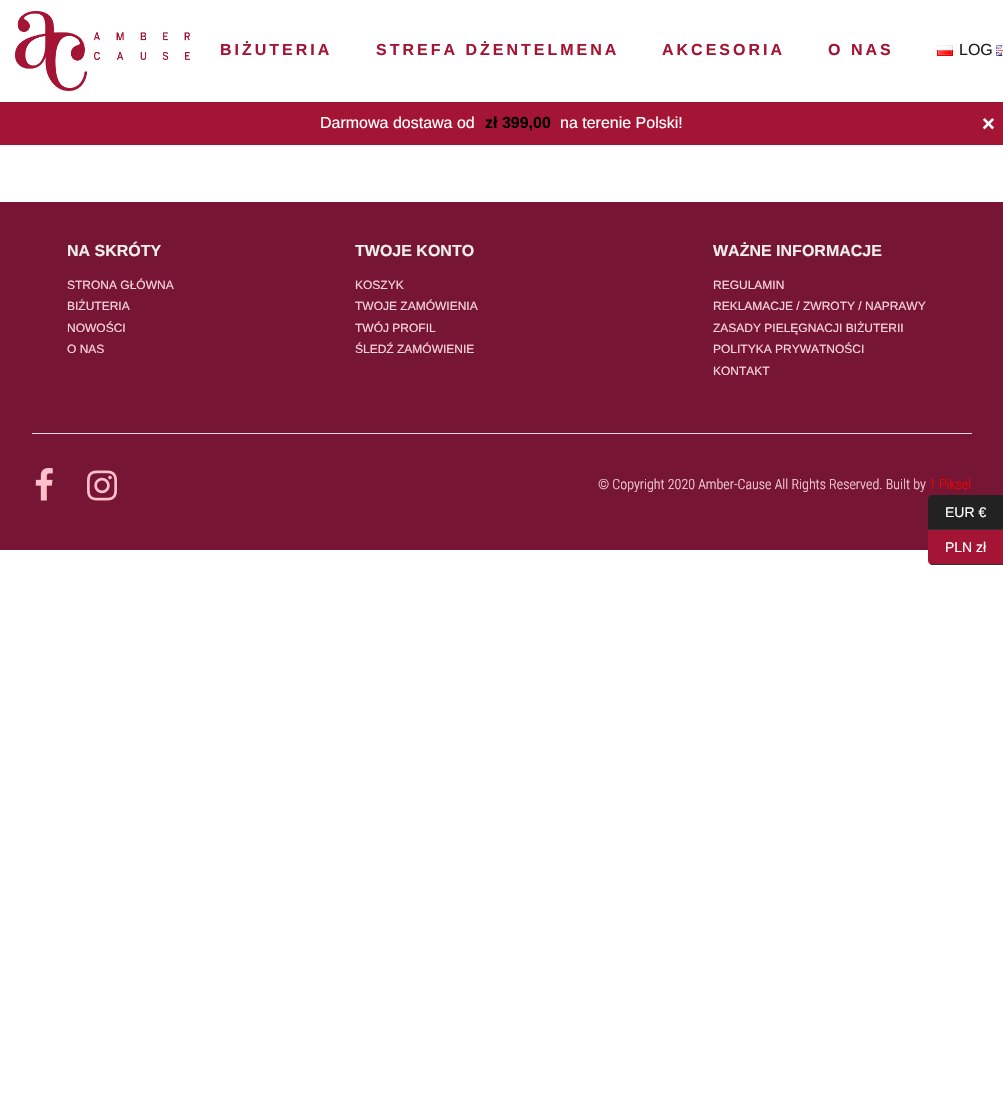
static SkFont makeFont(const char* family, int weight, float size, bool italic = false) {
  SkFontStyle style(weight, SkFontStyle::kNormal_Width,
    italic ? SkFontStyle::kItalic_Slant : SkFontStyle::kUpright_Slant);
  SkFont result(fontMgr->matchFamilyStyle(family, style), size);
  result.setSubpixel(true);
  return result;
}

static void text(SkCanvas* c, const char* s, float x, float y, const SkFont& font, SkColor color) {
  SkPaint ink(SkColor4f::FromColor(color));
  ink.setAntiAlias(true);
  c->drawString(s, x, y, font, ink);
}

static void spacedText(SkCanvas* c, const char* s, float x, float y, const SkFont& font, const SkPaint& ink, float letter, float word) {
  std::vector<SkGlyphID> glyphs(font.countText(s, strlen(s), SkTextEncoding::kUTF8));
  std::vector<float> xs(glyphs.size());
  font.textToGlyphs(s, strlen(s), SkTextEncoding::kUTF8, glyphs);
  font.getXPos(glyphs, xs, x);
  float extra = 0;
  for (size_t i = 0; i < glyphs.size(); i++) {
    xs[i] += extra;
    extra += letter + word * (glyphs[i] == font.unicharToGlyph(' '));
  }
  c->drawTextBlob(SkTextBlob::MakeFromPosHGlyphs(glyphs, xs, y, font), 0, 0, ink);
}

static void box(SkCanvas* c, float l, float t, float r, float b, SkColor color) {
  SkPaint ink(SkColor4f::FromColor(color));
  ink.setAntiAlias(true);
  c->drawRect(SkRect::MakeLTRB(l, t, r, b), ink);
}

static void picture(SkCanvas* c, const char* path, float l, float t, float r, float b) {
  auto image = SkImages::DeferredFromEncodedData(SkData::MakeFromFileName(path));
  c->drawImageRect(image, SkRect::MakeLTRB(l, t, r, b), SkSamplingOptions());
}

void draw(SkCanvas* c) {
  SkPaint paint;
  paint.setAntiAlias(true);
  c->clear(0xffffffff);
  box(c, 0, 102, 1003, 103, 0xff9c1432);
  picture(c, "img_01.png", 15, 11, 190, 91);
  SkFont face1 = makeFont("Liberation Sans", 700, 16);
  paint.setColor(0xffa41535);
  spacedText(c, "BIŻUTERIA", 220, 55, face1, paint, 3, 0);
  spacedText(c, "STREFA DŻENTELMENA", 376, 55, face1, paint, 3, 0);
  spacedText(c, "AKCESORIA", 662, 55, face1, paint, 3, 0);
  spacedText(c, "O NAS", 828, 55, face1, paint, 3, 0);
  picture(c, "img_02.png", 937, 45, 953, 56);
  SkFont face2 = makeFont("Liberation Sans", 400, 16);
  text(c, "LOG", 959, 55, face2, 0xff1e1e1e);
  picture(c, "img_03.png", 996, 45, 1003, 56);
  box(c, 0, 103, 1003, 145, 0xffa41535);
  text(c, "Darmowa dostawa od", 320, 128, face2, 0xffffffff);
  text(c, "zł 399,00", 485, 128, face1, 0xff000000);
  text(c, "na terenie Polski!", 560, 128, face2, 0xffffffff);
  SkFont face3 = makeFont("Liberation Sans", 700, 22);
  text(c, "×", 982, 131, face3, 0xffffffff);
  box(c, 0, 202, 1003, 550, 0xff771634);
  text(c, "NA SKRÓTY", 67, 256, face1, 0xffeeeeee);
  SkFont face4 = makeFont("Liberation Sans", 400, 12);
  text(c, "STRONA GŁÓWNA", 67, 289, face4, 0xfffbd7dd);
  text(c, "BIŻUTERIA", 67, 310, face4, 0xfffbd7dd);
  text(c, "NOWOŚCI", 67, 332, face4, 0xfffbd7dd);
  text(c, "O NAS", 67, 353, face4, 0xfffbd7dd);
  text(c, "TWOJE KONTO", 355, 256, face1, 0xffeeeeee);
  text(c, "KOSZYK", 355, 289, face4, 0xfffbd7dd);
  text(c, "TWOJE ZAMÓWIENIA", 355, 310, face4, 0xfffbd7dd);
  text(c, "TWÓJ PROFIL", 355, 332, face4, 0xfffbd7dd);
  text(c, "ŚLEDŹ ZAMÓWIENIE", 355, 353, face4, 0xfffbd7dd);
  text(c, "WAŻNE INFORMACJE", 713, 256, face1, 0xffeeeeee);
  text(c, "REGULAMIN", 713, 289, face4, 0xfffbd7dd);
  text(c, "REKLAMACJE / ZWROTY / NAPRAWY", 713, 310, face4, 0xfffbd7dd);
  text(c, "ZASADY PIELĘGNACJI BIŻUTERII", 713, 332, face4, 0xfffbd7dd);
  text(c, "POLITYKA PRYWATNOŚCI", 713, 353, face4, 0xfffbd7dd);
  text(c, "KONTAKT", 713, 375, face4, 0xfffbd7dd);
  box(c, 32, 433, 972, 434, 0xfffbd7dd);
  picture(c, "img_04.png", 35, 468, 53, 501);
  picture(c, "img_05.png", 87, 470, 117, 501);
  SkFont face5 = makeFont("Roboto Condensed", 300, 14);
  text(c, "© Copyright 2020 Amber-Cause All Rights Reserved. Built by", 598, 489, face5, 0xfffbd7dd);
  text(c, "1 Piksel", 929, 489, face5, 0xffff0000);
  paint.setColor(0xff222222);
  c->drawPath(SkPathBuilder().moveTo(933, 495).lineTo(1003, 495).lineTo(1003, 530).lineTo(928, 530).lineTo(928, 500).cubicTo(928, 497, 930, 495, 933, 495).close().detach(), paint);
  box(c, 928, 529, 1003, 530, 0xff333333);
  SkFont face6 = makeFont("Liberation Sans", 400, 14);
  text(c, "EUR €", 945, 517, face6, 0xffffffff);
  paint.setColor(0xffa41535);
  c->drawPath(SkPathBuilder().moveTo(928, 530).lineTo(1003, 530).lineTo(1003, 565).lineTo(933, 565).cubicTo(930, 565, 928, 563, 928, 560).close().detach(), paint);
  box(c, 931, 564, 1003, 565, 0xff333333);
  text(c, "PLN zł", 945, 552, face6, 0xffffffff);
}
